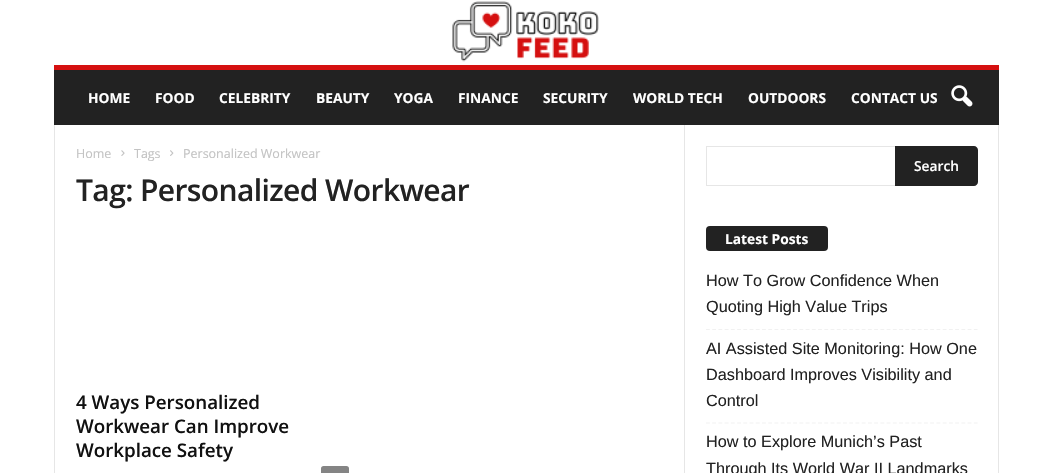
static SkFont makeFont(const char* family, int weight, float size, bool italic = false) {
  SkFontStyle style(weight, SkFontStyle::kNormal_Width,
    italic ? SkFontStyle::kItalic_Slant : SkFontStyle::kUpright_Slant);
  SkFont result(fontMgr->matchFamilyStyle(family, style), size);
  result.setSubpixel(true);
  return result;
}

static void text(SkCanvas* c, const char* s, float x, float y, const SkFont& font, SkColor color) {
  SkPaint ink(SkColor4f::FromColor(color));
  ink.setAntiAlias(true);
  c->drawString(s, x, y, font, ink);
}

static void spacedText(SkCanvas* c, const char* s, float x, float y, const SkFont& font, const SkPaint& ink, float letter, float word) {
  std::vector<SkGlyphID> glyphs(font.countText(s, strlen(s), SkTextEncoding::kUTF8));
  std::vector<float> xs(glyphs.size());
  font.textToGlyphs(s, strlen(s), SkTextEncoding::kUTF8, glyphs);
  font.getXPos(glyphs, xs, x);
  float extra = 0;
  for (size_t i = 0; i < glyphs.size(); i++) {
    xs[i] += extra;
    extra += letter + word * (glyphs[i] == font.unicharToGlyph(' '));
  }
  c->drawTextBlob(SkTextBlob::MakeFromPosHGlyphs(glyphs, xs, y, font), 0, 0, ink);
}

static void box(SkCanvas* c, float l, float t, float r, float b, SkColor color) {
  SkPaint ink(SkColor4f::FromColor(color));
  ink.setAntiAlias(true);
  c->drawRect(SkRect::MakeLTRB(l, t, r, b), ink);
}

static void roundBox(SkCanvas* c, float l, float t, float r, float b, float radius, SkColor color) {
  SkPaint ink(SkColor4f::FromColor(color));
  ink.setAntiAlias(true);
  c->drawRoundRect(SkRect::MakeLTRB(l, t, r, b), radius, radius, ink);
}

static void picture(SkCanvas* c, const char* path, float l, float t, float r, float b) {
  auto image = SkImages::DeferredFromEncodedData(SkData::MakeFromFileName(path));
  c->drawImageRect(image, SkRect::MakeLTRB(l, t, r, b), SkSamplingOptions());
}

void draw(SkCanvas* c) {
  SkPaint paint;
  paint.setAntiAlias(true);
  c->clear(0xffffffff);
  picture(c, "img_01.png", 452, 1, 599, 62);
  box(c, 54, 70, 999, 125, 0xff222222);
  box(c, 54, 65, 999, 70, 0xffd51010);
  SkFont face1 = makeFont("Open Sans", 700, 13.75f);
  text(c, "HOME", 88, 103, face1, 0xffffffff);
  text(c, "FOOD", 155, 103, face1, 0xffffffff);
  text(c, "CELEBRITY", 219, 103, face1, 0xffffffff);
  text(c, "BEAUTY", 316, 103, face1, 0xffffffff);
  text(c, "YOGA", 394, 103, face1, 0xffffffff);
  text(c, "FINANCE", 458, 103, face1, 0xffffffff);
  text(c, "SECURITY", 543, 103, face1, 0xffffffff);
  text(c, "WORLD TECH", 633, 103, face1, 0xffffffff);
  text(c, "OUTDOORS", 748, 103, face1, 0xffffffff);
  text(c, "CONTACT US", 851, 103, face1, 0xffffffff);
  picture(c, "img_02.png", 951, 85, 973, 107);
  box(c, 54, 125, 55, 473, 0xffe6e6e6);
  SkFont face2 = makeFont("Open Sans", 400, 12.5f);
  text(c, "Home", 76, 158, face2, 0xffc3c3c3);
  picture(c, "img_03.png", 121, 150, 125, 156);
  text(c, "Tags", 134, 158, face2, 0xffc3c3c3);
  picture(c, "img_04.png", 170, 150, 174, 156);
  text(c, "Personalized Workwear", 183, 158, face2, 0xffc3c3c3);
  SkFont face3 = makeFont("Open Sans", 600, 30);
  paint.setColor(0xff222222);
  spacedText(c, "Tag: Personalized Workwear", 76, 201, face3, paint, -0.6f, 0);
  SkFont face4 = makeFont("Open Sans", 600, 18.75f);
  text(c, "4 Ways Personalized", 76, 409, face4, 0xff111111);
  text(c, "Workwear Can Improve", 76, 433, face4, 0xff111111);
  text(c, "Workplace Safety", 76, 457, face4, 0xff111111);
  paint.setColor(0xff848484);
  c->drawPath(SkPathBuilder().moveTo(323.5f, 466).lineTo(346.5f, 466).cubicTo(348, 466, 349, 467, 349, 468.5f).lineTo(349, 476).lineTo(323.5f, 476).cubicTo(322, 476, 321, 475, 321, 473.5f).lineTo(321, 468.5f).cubicTo(321, 467, 322, 466, 323.5f, 466).close().detach(), paint);
  box(c, 684, 125, 685, 473, 0xffe6e6e6);
  box(c, 706, 146, 895, 147, 0xffe6e6e6);
  box(c, 706, 185, 895, 186, 0xffe6e6e6);
  box(c, 706, 146, 707, 186, 0xffe6e6e6);
  paint.setColor(0xff222222);
  c->drawPath(SkPathBuilder().moveTo(895, 146).lineTo(974, 146).cubicTo(976, 146, 978, 148, 978, 150).lineTo(978, 182).cubicTo(978, 184, 976, 186, 974, 186).lineTo(895, 186).close().detach(), paint);
  SkFont face5 = makeFont("Open Sans", 600, 13.75f);
  text(c, "Search", 914, 171, face5, 0xffffffff);
  roundBox(c, 706, 226, 828, 251, 4, 0xff222222);
  text(c, "Latest Posts", 725, 244, face1, 0xffffffff);
  paint.setStyle(SkPaint::kStroke_Style);
  paint.setStrokeWidth(1.2f);
  paint.setColor(0xfff1f1f1);
  paint.setPathEffect(SkDashPathEffect::Make({{3.75f, 2.48f}}, 0));
  c->drawPath(SkPathBuilder().moveTo(706, 329.5f).lineTo(977.5f, 329.5f).detach(), paint);
  paint.setPathEffect(nullptr);
  SkFont face6 = makeFont("Liberation Sans", 400, 16.25f);
  text(c, "How To Grow Confidence When", 706, 286, face6, 0xff222222);
  text(c, "Quoting High Value Trips", 706, 312, face6, 0xff222222);
  paint.setPathEffect(SkDashPathEffect::Make({{3.75f, 2.48f}}, 0));
  c->drawPath(SkPathBuilder().moveTo(706, 423).lineTo(977.5f, 423).detach(), paint);
  paint.setPathEffect(nullptr);
  text(c, "AI Assisted Site Monitoring: How One", 706, 354, face6, 0xff222222);
  text(c, "Dashboard Improves Visibility and", 706, 380, face6, 0xff222222);
  text(c, "Control", 706, 406, face6, 0xff222222);
  text(c, "How to Explore Munich’s Past", 706, 447, face6, 0xff222222);
  text(c, "Through Its World War II Landmarks", 706, 474, face6, 0xff222222);
  box(c, 998, 125, 999, 473, 0xffe6e6e6);
}
